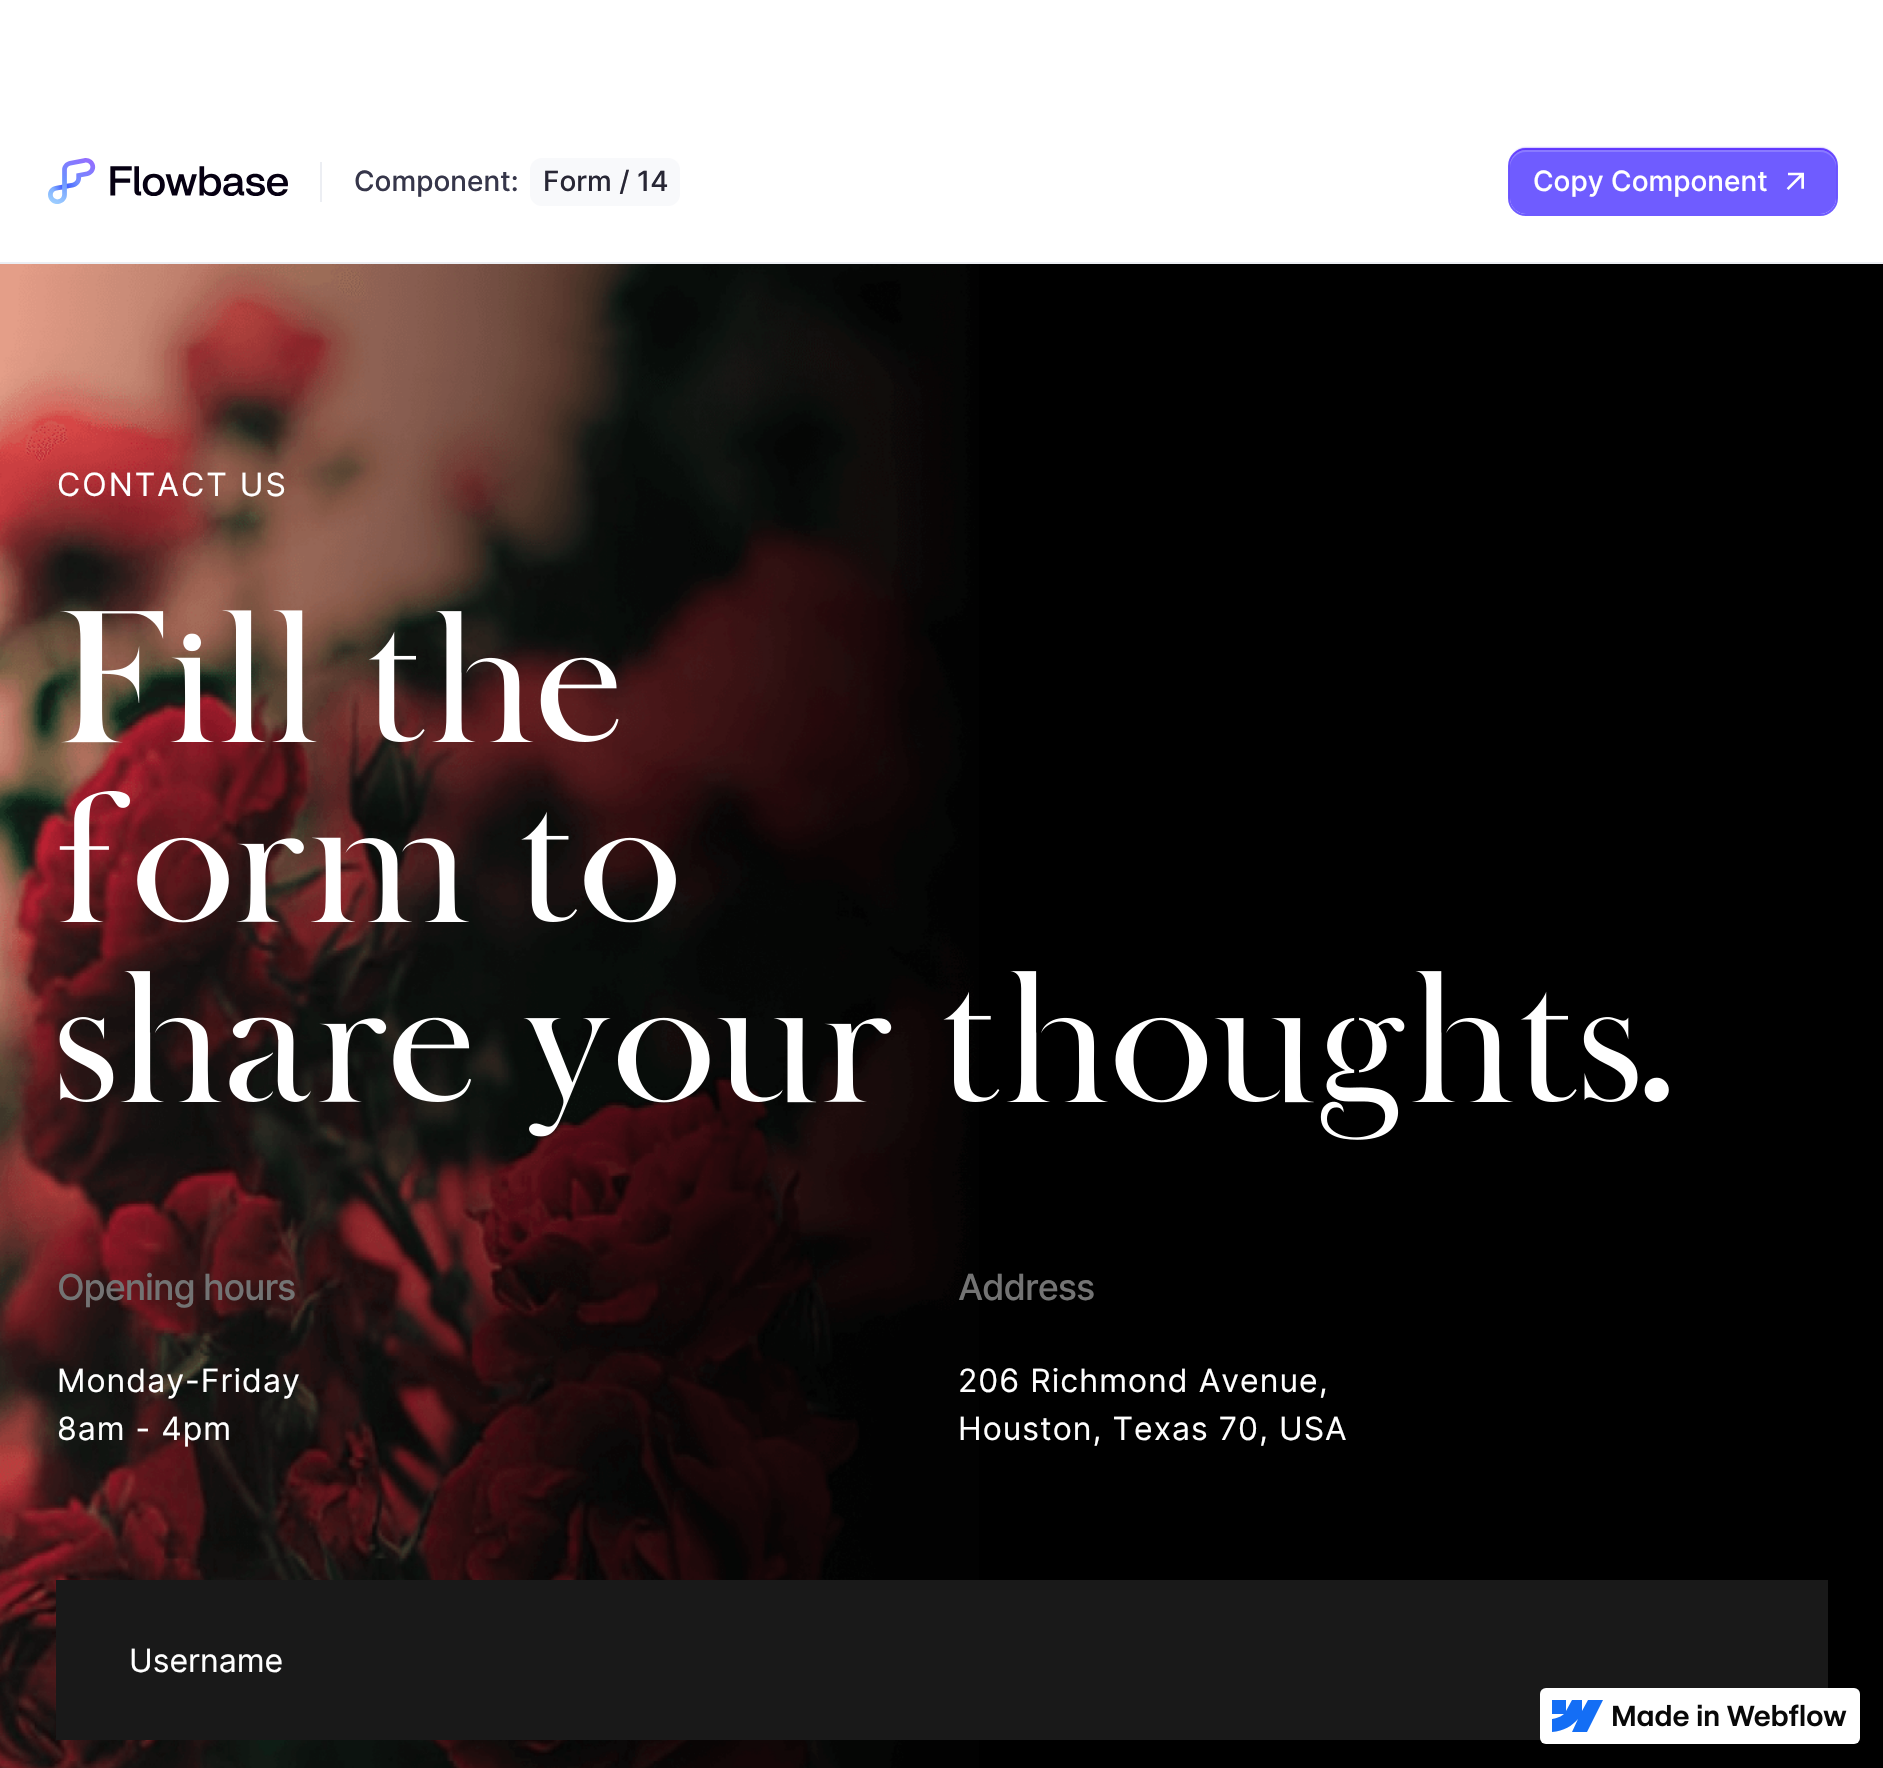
static SkFont makeFont(const char* family, int weight, float size, bool italic = false) {
  SkFontStyle style(weight, SkFontStyle::kNormal_Width,
    italic ? SkFontStyle::kItalic_Slant : SkFontStyle::kUpright_Slant);
  SkFont result(fontMgr->matchFamilyStyle(family, style), size);
  result.setSubpixel(true);
  return result;
}

static void text(SkCanvas* c, const char* s, float x, float y, const SkFont& font, SkColor color) {
  SkPaint ink(SkColor4f::FromColor(color));
  ink.setAntiAlias(true);
  c->drawString(s, x, y, font, ink);
}

static void spacedText(SkCanvas* c, const char* s, float x, float y, const SkFont& font, const SkPaint& ink, float letter, float word) {
  std::vector<SkGlyphID> glyphs(font.countText(s, strlen(s), SkTextEncoding::kUTF8));
  std::vector<float> xs(glyphs.size());
  font.textToGlyphs(s, strlen(s), SkTextEncoding::kUTF8, glyphs);
  font.getXPos(glyphs, xs, x);
  float extra = 0;
  for (size_t i = 0; i < glyphs.size(); i++) {
    xs[i] += extra;
    extra += letter + word * (glyphs[i] == font.unicharToGlyph(' '));
  }
  c->drawTextBlob(SkTextBlob::MakeFromPosHGlyphs(glyphs, xs, y, font), 0, 0, ink);
}

static void box(SkCanvas* c, float l, float t, float r, float b, SkColor color) {
  SkPaint ink(SkColor4f::FromColor(color));
  ink.setAntiAlias(true);
  c->drawRect(SkRect::MakeLTRB(l, t, r, b), ink);
}

static void roundBox(SkCanvas* c, float l, float t, float r, float b, float radius, SkColor color) {
  SkPaint ink(SkColor4f::FromColor(color));
  ink.setAntiAlias(true);
  c->drawRoundRect(SkRect::MakeLTRB(l, t, r, b), radius, radius, ink);
}

static void picture(SkCanvas* c, const char* path, float l, float t, float r, float b) {
  auto image = SkImages::DeferredFromEncodedData(SkData::MakeFromFileName(path));
  c->drawImageRect(image, SkRect::MakeLTRB(l, t, r, b), SkSamplingOptions());
}

void draw(SkCanvas* c) {
  SkPaint paint;
  paint.setAntiAlias(true);
  c->clear(0xffffffff);
  box(c, 0, 262, 1883, 264, 0xffeceef3);
  picture(c, "img_01.png", 48, 158, 288, 204);
  box(c, 320, 162, 322, 202, 0xffeceef3);
  SkFont face1 = makeFont("Inter", 500, 28);
  text(c, "Component:", 354, 191, face1, 0xff36364a);
  roundBox(c, 530, 158, 680, 206, 12, 0xfff8f9fb);
  text(c, "Form / 14", 543, 191, face1, 0xff282735);
  paint.setStyle(SkPaint::kStroke_Style);
  paint.setStrokeWidth(2);
  paint.setColor(0xff6e5bff);
  c->drawRoundRect(SkRect::MakeLTRB(1509, 149, 1837, 215), 17, 17, paint);
  paint.setStyle(SkPaint::kFill_Style);
  paint.setColor(0xcc5b29ff);
  paint.setMaskFilter(SkMaskFilter::MakeBlur(kNormal_SkBlurStyle, 1));
  c->drawRoundRect(SkRect::MakeLTRB(1510, 148, 1836, 212), 16, 16, paint);
  paint.setMaskFilter(nullptr);
  roundBox(c, 1510, 150, 1836, 214, 16, 0xff6f5cff);
  paint.setColor(0x999b8eff);
  c->drawPath(SkPathBuilder().moveTo(1526, 152).lineTo(1820, 152).cubicTo(1829, 152, 1836, 159, 1836, 168).lineTo(1836, 166).cubicTo(1836, 157, 1829, 150, 1820, 150).lineTo(1526, 150).cubicTo(1517, 150, 1510, 157, 1510, 166).lineTo(1510, 168).cubicTo(1510, 159, 1517, 152, 1526, 152).close().detach(), paint);
  text(c, "Copy Component", 1533, 191, face1, 0xffffffff);
  picture(c, "img_02.png", 1786, 172, 1804, 190);
  box(c, 979, 264, 1883, 1768, 0xff000000);
  picture(c, "img_03.png", 0, 264, 979, 1768);
  SkFont face2 = makeFont("Inter", 400, 32);
  paint.setColor(0xffffffff);
  spacedText(c, "CONTACT US", 57, 496, face2, paint, 2, 0);
  picture(c, "img_04.png", 60, 610, 619, 743);
  picture(c, "img_05.png", 59, 791, 676, 923);
  picture(c, "img_06.png", 59, 971, 1669, 1140);
  SkFont face3 = makeFont("Inter", 500, 36);
  paint.setColor(0xff737373);
  spacedText(c, "Opening hours", 57, 1300, face3, paint, -1.1f, 0);
  paint.setColor(0xffffffff);
  spacedText(c, "Monday-Friday", 57, 1392, face2, paint, 1, 0);
  spacedText(c, "8am - 4pm", 57, 1440, face2, paint, 1, 0);
  paint.setColor(0xff737373);
  spacedText(c, "Address", 958, 1300, face3, paint, -1.1f, 0);
  paint.setColor(0xffffffff);
  spacedText(c, "206 Richmond Avenue,", 958, 1392, face2, paint, 1, 0);
  spacedText(c, "Houston, Texas 70, USA", 958, 1440, face2, paint, 1, 0);
  box(c, 56, 1580, 1828, 1740, 0xff191919);
  text(c, "Username", 129, 1672, face2, 0xffffffff);
  roundBox(c, 1540, 1688, 1860, 1744, 6, 0xffffffff);
  paint.setColor(0xff146ef5);
  c->drawPath(SkPathBuilder(SkPathFillType::kEvenOdd).moveTo(1603, 1700).lineTo(1587, 1732).lineTo(1572, 1732).lineTo(1578, 1719).cubicTo(1572, 1726, 1564, 1731, 1552, 1732).lineTo(1552, 1719).cubicTo(1552, 1719, 1560, 1718, 1564, 1714).lineTo(1552, 1714).lineTo(1552, 1700).lineTo(1566, 1700).lineTo(1566, 1711).lineTo(1572, 1700).lineTo(1582, 1700).lineTo(1582, 1711).lineTo(1588, 1700).close().detach(), paint);
  picture(c, "img_07.png", 1613, 1704, 1847, 1727);
}
